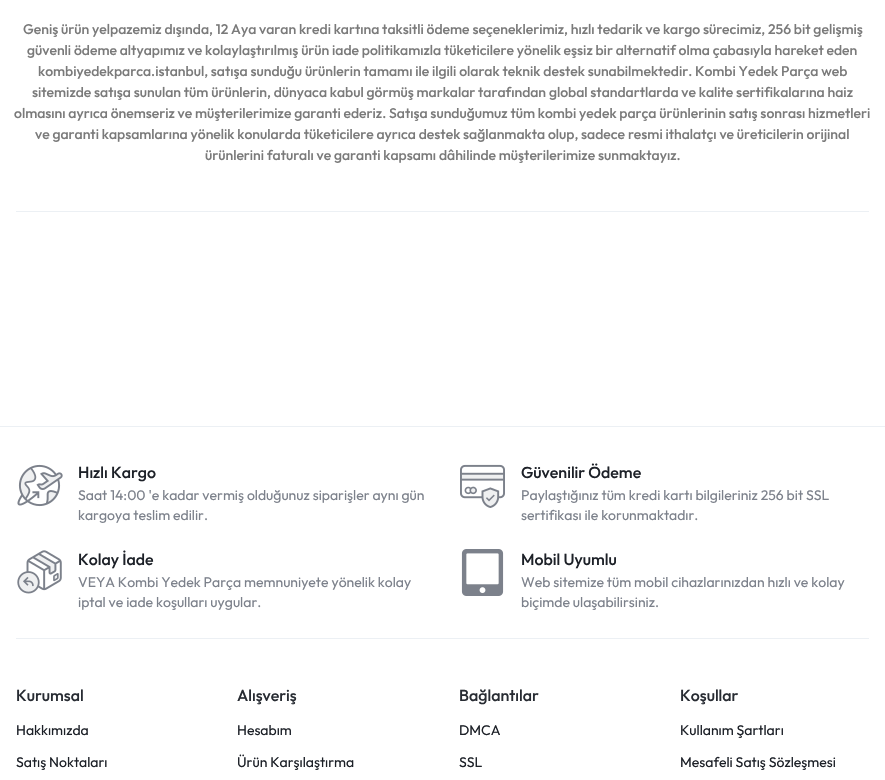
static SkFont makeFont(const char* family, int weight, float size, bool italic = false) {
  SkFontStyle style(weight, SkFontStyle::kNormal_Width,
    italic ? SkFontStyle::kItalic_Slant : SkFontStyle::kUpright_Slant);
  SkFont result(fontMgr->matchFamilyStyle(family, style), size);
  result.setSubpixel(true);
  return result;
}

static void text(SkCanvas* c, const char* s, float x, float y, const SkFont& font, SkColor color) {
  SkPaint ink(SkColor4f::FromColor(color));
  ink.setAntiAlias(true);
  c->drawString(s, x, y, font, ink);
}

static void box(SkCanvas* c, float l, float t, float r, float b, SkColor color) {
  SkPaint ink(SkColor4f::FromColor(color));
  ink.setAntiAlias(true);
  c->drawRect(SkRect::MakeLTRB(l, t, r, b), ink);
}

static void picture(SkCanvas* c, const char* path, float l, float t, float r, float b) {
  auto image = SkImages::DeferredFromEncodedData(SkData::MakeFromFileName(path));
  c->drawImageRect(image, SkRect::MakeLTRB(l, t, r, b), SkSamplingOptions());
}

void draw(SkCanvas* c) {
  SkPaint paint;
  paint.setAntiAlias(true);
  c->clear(0xffffffff);
  SkFont face1 = makeFont("Outfit", 500, 14);
  text(c, "Geniş ürün yelpazemiz dışında, 12 Aya varan kredi kartına taksitli ödeme seçeneklerimiz, hızlı tedarik ve kargo sürecimiz, 256 bit gelişmiş", 23, 34, face1, 0xff7a7a7a);
  text(c, "güvenli ödeme altyapımız ve kolaylaştırılmış ürün iade politikamızla tüketicilere yönelik eşsiz bir alternatif olma çabasıyla hareket eden", 27, 55, face1, 0xff7a7a7a);
  text(c, "kombiyedekparca.istanbul, satışa sunduğu ürünlerin tamamı ile ilgili olarak teknik destek sunabilmektedir. Kombi Yedek Parça web", 38, 76, face1, 0xff7a7a7a);
  text(c, "sitemizde satışa sunulan tüm ürünlerin, dünyaca kabul görmüş markalar tarafından global standartlarda ve kalite sertifikalarına haiz", 32, 97, face1, 0xff7a7a7a);
  text(c, "olmasını ayrıca önemseriz ve müşterilerimize garanti ederiz. Satışa sunduğumuz tüm kombi yedek parça ürünlerinin satış sonrası hizmetleri", 14, 118, face1, 0xff7a7a7a);
  text(c, "ve garanti kapsamlarına yönelik konularda tüketicilere ayrıca destek sağlanmakta olup, sadece resmi ithalatçı ve üreticilerin orijinal", 35, 139, face1, 0xff7a7a7a);
  text(c, "ürünlerini faturalı ve garanti kapsamı dâhilinde müşterilerimize sunmaktayız.", 205, 160, face1, 0xff7a7a7a);
  box(c, 16, 211, 869, 212, 0xffecf0f4);
  box(c, 0, 426, 885, 427, 0xffecf0f4);
  picture(c, "img_01.png", 17, 464, 63, 507);
  SkFont face2 = makeFont("Outfit", 500, 16);
  text(c, "Hızlı Kargo", 78, 478, face2, 0xff1d2128);
  SkFont face3 = makeFont("Outfit", 400, 14);
  text(c, "Saat 14:00 'e kadar vermiş olduğunuz siparişler aynı gün", 78, 500, face3, 0xff7c818b);
  text(c, "kargoya teslim edilir.", 78, 520, face3, 0xff7c818b);
  picture(c, "img_02.png", 460, 464, 505, 508);
  text(c, "Güvenilir Ödeme", 521, 478, face2, 0xff1d2128);
  text(c, "Paylaştığınız tüm kredi kartı bilgileriniz 256 bit SSL", 521, 500, face3, 0xff7c818b);
  text(c, "sertifikası ile korunmaktadır.", 521, 520, face3, 0xff7c818b);
  picture(c, "img_03.png", 17, 550, 62, 594);
  text(c, "Kolay İade", 78, 565, face2, 0xff1d2128);
  text(c, "VEYA Kombi Yedek Parça memnuniyete yönelik kolay", 78, 587, face3, 0xff7c818b);
  text(c, "iptal ve iade koşulları uygular.", 78, 607, face3, 0xff7c818b);
  picture(c, "img_04.png", 461, 549, 504, 596);
  text(c, "Mobil Uyumlu", 521, 565, face2, 0xff1d2128);
  text(c, "Web sitemize tüm mobil cihazlarınızdan hızlı ve kolay", 521, 587, face3, 0xff7c818b);
  text(c, "biçimde ulaşabilirsiniz.", 521, 607, face3, 0xff7c818b);
  box(c, 16, 638, 869, 639, 0xffecf0f4);
  text(c, "Kurumsal", 16, 701, face2, 0xff282c33);
  text(c, "Hakkımızda", 16, 735, face3, 0xff1d2128);
  text(c, "Satış Noktaları", 16, 767, face3, 0xff1d2128);
  text(c, "Alışveriş", 237, 701, face2, 0xff282c33);
  text(c, "Hesabım", 237, 735, face3, 0xff1d2128);
  text(c, "Ürün Karşılaştırma", 237, 767, face3, 0xff1d2128);
  text(c, "Bağlantılar", 459, 701, face2, 0xff282c33);
  text(c, "DMCA", 459, 735, face3, 0xff1d2128);
  text(c, "SSL", 459, 767, face3, 0xff1d2128);
  text(c, "Koşullar", 680, 701, face2, 0xff282c33);
  text(c, "Kullanım Şartları", 680, 735, face3, 0xff1d2128);
  text(c, "Mesafeli Satış Sözleşmesi", 680, 767, face3, 0xff1d2128);
}
